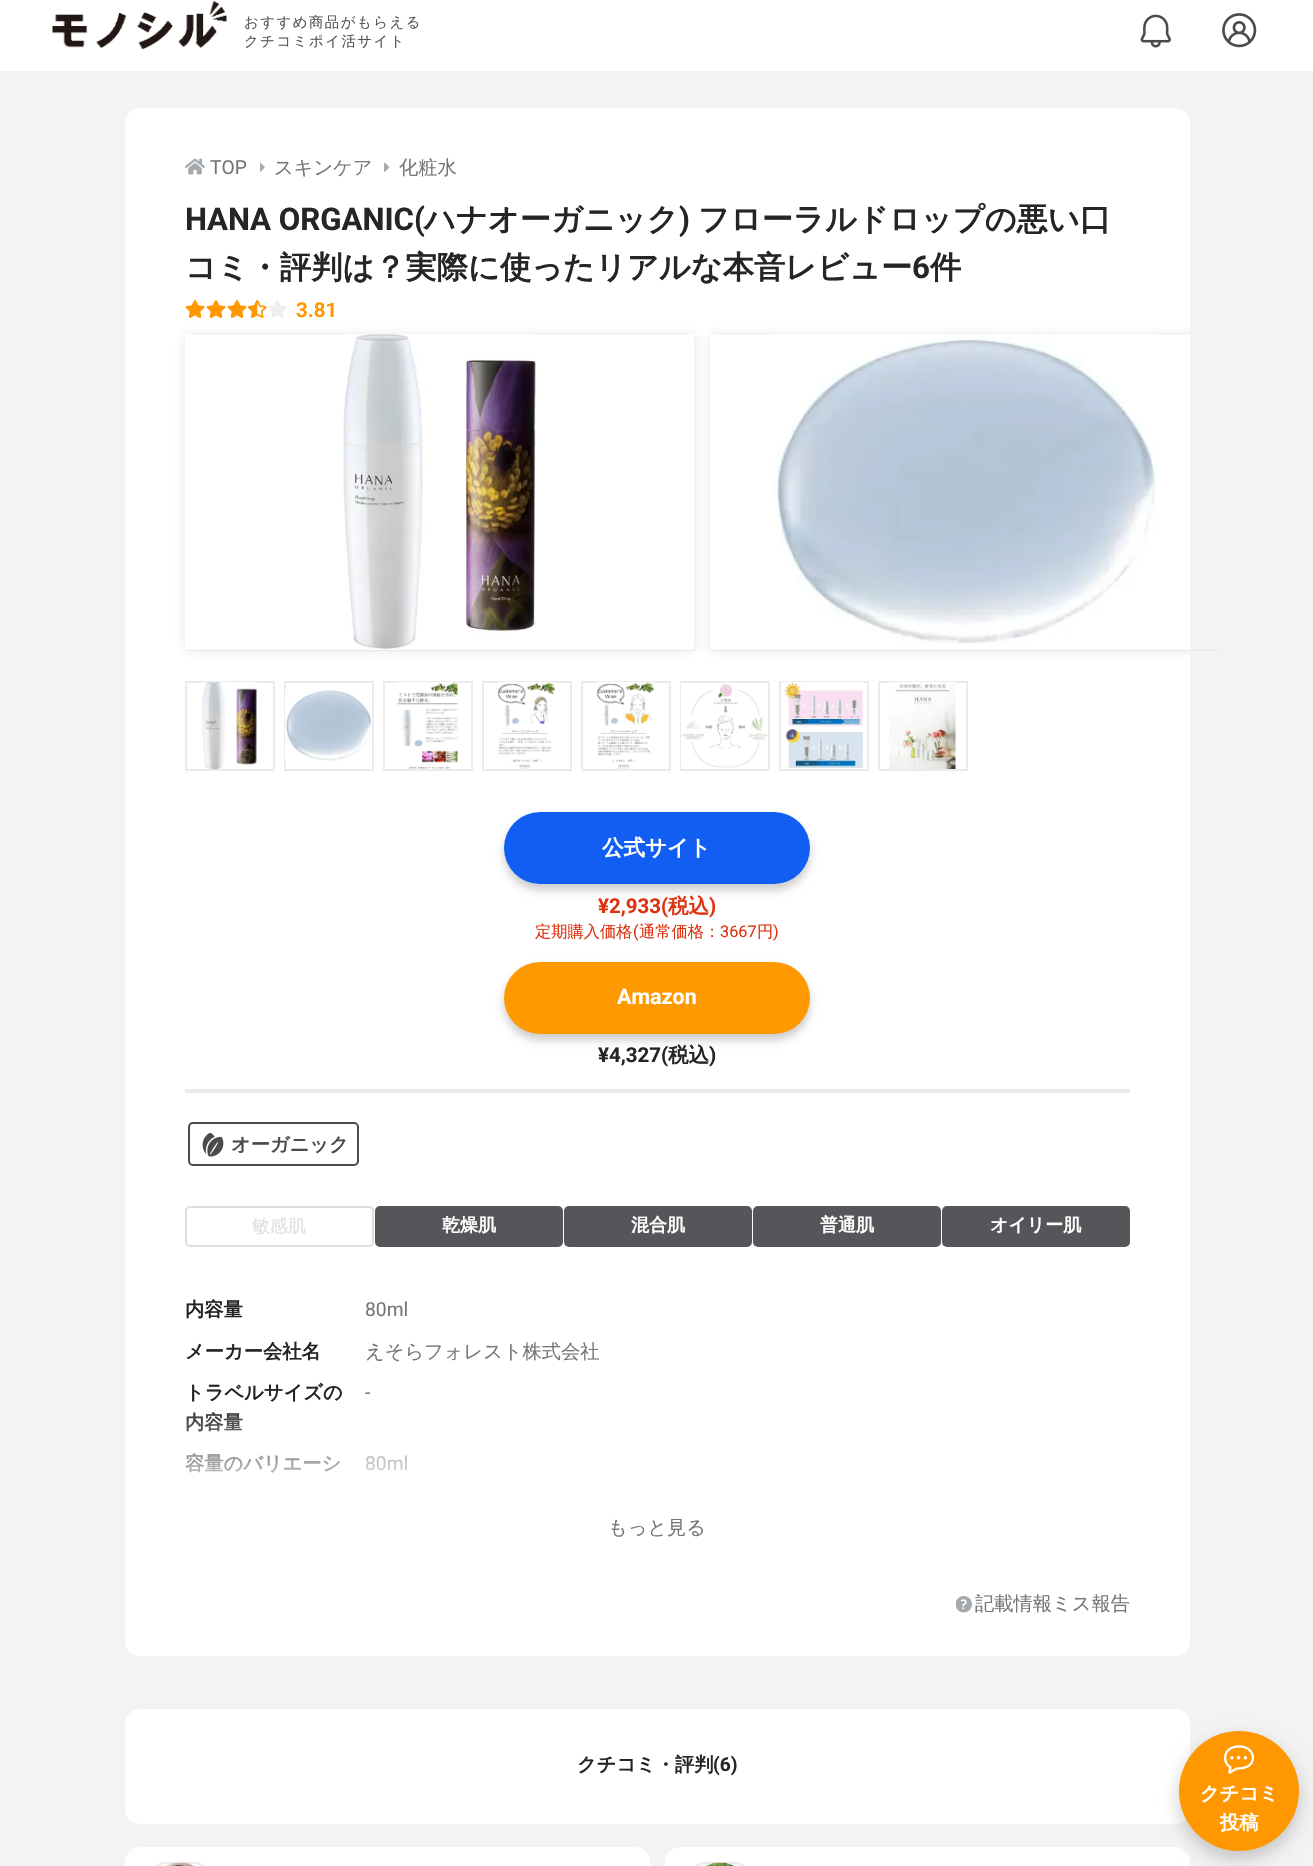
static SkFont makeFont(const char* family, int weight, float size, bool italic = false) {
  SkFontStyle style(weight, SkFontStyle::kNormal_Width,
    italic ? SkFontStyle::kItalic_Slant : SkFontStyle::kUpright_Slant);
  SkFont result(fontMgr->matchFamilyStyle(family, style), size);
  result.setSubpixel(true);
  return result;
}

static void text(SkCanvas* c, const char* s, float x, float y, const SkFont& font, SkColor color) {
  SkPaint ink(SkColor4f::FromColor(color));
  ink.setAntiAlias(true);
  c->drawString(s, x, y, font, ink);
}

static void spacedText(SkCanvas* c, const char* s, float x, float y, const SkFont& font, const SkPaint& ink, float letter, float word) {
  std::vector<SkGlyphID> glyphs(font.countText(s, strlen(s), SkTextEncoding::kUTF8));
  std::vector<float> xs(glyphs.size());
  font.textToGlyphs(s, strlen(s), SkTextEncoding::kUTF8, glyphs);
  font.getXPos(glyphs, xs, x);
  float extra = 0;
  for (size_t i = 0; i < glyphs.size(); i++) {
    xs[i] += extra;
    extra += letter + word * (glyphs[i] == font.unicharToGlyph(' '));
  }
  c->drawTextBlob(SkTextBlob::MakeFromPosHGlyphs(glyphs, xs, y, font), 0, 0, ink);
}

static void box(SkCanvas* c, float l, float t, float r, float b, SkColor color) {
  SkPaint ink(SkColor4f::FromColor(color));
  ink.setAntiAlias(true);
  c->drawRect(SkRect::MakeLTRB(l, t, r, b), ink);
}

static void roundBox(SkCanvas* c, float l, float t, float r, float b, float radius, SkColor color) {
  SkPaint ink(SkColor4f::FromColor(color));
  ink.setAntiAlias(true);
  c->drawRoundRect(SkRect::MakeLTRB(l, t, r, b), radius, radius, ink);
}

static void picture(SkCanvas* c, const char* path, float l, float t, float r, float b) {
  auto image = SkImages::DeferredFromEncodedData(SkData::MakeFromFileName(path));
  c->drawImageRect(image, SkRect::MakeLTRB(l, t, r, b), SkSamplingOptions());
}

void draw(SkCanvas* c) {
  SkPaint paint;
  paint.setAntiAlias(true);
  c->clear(0xfff3f3f3);
  box(c, 0, 0, 1313, 71, 0xffffffff);
  picture(c, "img_01.png", 52, 1, 227, 49);
  SkFont face1 = makeFont("WenQuanYi Zen Hei", 500, 14.4f);
  paint.setColor(0xff555555);
  spacedText(c, "おすすめ商品がもらえる", 244, 27, face1, paint, 1.5f, 0);
  spacedText(c, "クチコミポイ活サイト", 244, 46, face1, paint, 1.5f, 0);
  picture(c, "img_02.png", 1140, 14, 1171, 48);
  picture(c, "img_03.png", 1222, 13, 1257, 48);
  paint.setColor(0xffffffff);
  c->drawPath(SkPathBuilder().moveTo(140, 108).lineTo(1175, 108).cubicTo(1183.5f, 108, 1190, 114.5f, 1190, 123).lineTo(1190, 803).lineTo(125, 803).lineTo(125, 123).cubicTo(125, 114.5f, 131.5f, 108, 140, 108).close().detach(), paint);
  picture(c, "img_04.png", 185, 158, 205, 175);
  SkFont face2 = makeFont("Roboto", 400, 19.25f);
  text(c, "TOP", 210, 174, face2, 0xff767676);
  picture(c, "img_05.png", 260, 162, 265, 172);
  SkFont face3 = makeFont("WenQuanYi Zen Hei", 500, 19.25f);
  text(c, "スキンケア", 274, 174, face3, 0xff767676);
  picture(c, "img_06.png", 384, 162, 390, 172);
  text(c, "化粧水", 399, 174, face3, 0xff767676);
  SkFont face4 = makeFont("Roboto", 700, 31.2f);
  text(c, "HANA ORGANIC(", 185, 230, face4, 0xff252525);
  SkFont face5 = makeFont("WenQuanYi Zen Hei", 700, 31.2f);
  text(c, "ハナオーガニック", 424, 230, face5, 0xff252525);
  text(c, ")", 679, 230, face4, 0xff252525);
  text(c, "フローラルドロップの悪い口", 698, 230, face5, 0xff252525);
  text(c, "コミ・評判は？実際に使ったリアルな本音レビュー", 185, 278, face5, 0xff252525);
  text(c, "6", 912, 278, face4, 0xff252525);
  text(c, "件", 930, 278, face5, 0xff252525);
  picture(c, "img_07.png", 185, 300, 205, 318);
  picture(c, "img_07.png", 206, 300, 226, 318);
  picture(c, "img_07.png", 227, 300, 247, 318);
  picture(c, "img_08.png", 248, 300, 267, 318);
  picture(c, "img_09.png", 268, 300, 287, 318);
  SkFont face6 = makeFont("Roboto", 700, 20.5f);
  text(c, "3.81", 296, 317, face6, 0xffff9800);
  c->save();
  c->clipPath(SkPathBuilder(SkPathFillType::kEvenOdd).moveTo(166, 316).lineTo(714, 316).lineTo(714, 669).lineTo(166, 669).close().moveTo(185, 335).lineTo(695, 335).lineTo(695, 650).lineTo(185, 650).close().detach(), true);
  paint.setColor(0x1a11111a);
  paint.setMaskFilter(SkMaskFilter::MakeBlur(kNormal_SkBlurStyle, 6));
  c->drawRect(SkRect::MakeLTRB(185, 335, 695, 650), paint);
  paint.setMaskFilter(nullptr);
  c->restore();
  paint.setColor(0x0d11111a);
  c->drawPath(SkPathBuilder().moveTo(185, 650).lineTo(185, 651).lineTo(695, 651).lineTo(695, 336).lineTo(694, 336).lineTo(694, 650).close().detach(), paint);
  picture(c, "img_10.png", 343, 334, 536, 649);
  c->save();
  c->clipRect(SkRect::MakeLTRB(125, 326, 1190, 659));
  c->clipPath(SkPathBuilder(SkPathFillType::kEvenOdd).moveTo(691, 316).lineTo(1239, 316).lineTo(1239, 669).lineTo(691, 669).close().moveTo(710, 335).lineTo(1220, 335).lineTo(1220, 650).lineTo(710, 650).close().detach(), true);
  paint.setColor(0x1a11111a);
  paint.setMaskFilter(SkMaskFilter::MakeBlur(kNormal_SkBlurStyle, 6));
  c->drawRect(SkRect::MakeLTRB(710, 335, 1220, 650), paint);
  paint.setMaskFilter(nullptr);
  c->restore();
  paint.setColor(0x0d11111a);
  c->drawPath(SkPathBuilder().moveTo(710, 650).lineTo(710, 651).lineTo(1220, 651).lineTo(1220, 336).lineTo(1220, 650).close().detach(), paint);
  picture(c, "img_11.png", 771, 334, 1158, 646);
  paint.setStyle(SkPaint::kStroke_Style);
  paint.setStrokeWidth(2);
  paint.setColor(0xffebebeb);
  c->drawRect(SkRect::MakeLTRB(186, 682, 274, 770), paint);
  picture(c, "img_12.png", 202, 682, 257, 769);
  c->drawRect(SkRect::MakeLTRB(285, 682, 373, 770), paint);
  picture(c, "img_13.png", 285, 689, 372, 762);
  c->drawRect(SkRect::MakeLTRB(384, 682, 472, 770), paint);
  picture(c, "img_14.png", 397, 682, 458, 769);
  c->drawRect(SkRect::MakeLTRB(483, 682, 571, 770), paint);
  picture(c, "img_15.png", 498, 682, 555, 769);
  c->drawRect(SkRect::MakeLTRB(582, 682, 670, 770), paint);
  picture(c, "img_16.png", 597, 682, 654, 769);
  c->drawRect(SkRect::MakeLTRB(681, 682, 769, 770), paint);
  picture(c, "img_17.png", 681, 683, 768, 768);
  c->drawRect(SkRect::MakeLTRB(780, 682, 868, 770), paint);
  picture(c, "img_18.png", 783, 682, 864, 769);
  c->drawRect(SkRect::MakeLTRB(879, 682, 967, 770), paint);
  picture(c, "img_19.png", 889, 682, 956, 769);
  paint.setStyle(SkPaint::kFill_Style);
  paint.setColor(0xffffffff);
  c->drawPath(SkPathBuilder().moveTo(125, 803).lineTo(1190, 803).lineTo(1190, 1641).cubicTo(1190, 1649.5f, 1183.5f, 1656, 1175, 1656).lineTo(140, 1656).cubicTo(131.5f, 1656, 125, 1649.5f, 125, 1641).close().detach(), paint);
  paint.setColor(0x33000000);
  paint.setMaskFilter(SkMaskFilter::MakeBlur(kNormal_SkBlurStyle, 4.5f));
  c->drawRoundRect(SkRect::MakeLTRB(504, 818, 810, 890), 36, 36, paint);
  paint.setMaskFilter(nullptr);
  roundBox(c, 504, 812, 810, 884, 36, 0xff125ef3);
  SkFont face7 = makeFont("WenQuanYi Zen Hei", 700, 21.5f);
  text(c, "公式サイト", 602, 855, face7, 0xffffffff);
  text(c, "¥2,933(", 598, 913, face6, 0xffde3210);
  SkFont face8 = makeFont("WenQuanYi Zen Hei", 700, 20.5f);
  text(c, "税込", 668, 913, face8, 0xffde3210);
  text(c, ")", 709, 913, face6, 0xffde3210);
  SkFont face9 = makeFont("WenQuanYi Zen Hei", 500, 16.25f);
  text(c, "定期購入価格", 535, 937, face9, 0xffde3210);
  SkFont face10 = makeFont("Roboto", 400, 16.25f);
  text(c, "(", 633, 937, face10, 0xffde3210);
  text(c, "通常価格：", 639, 937, face9, 0xffde3210);
  text(c, "3667", 720, 937, face10, 0xffde3210);
  text(c, "円", 757, 937, face9, 0xffde3210);
  text(c, ")", 773, 937, face10, 0xffde3210);
  paint.setMaskFilter(SkMaskFilter::MakeBlur(kNormal_SkBlurStyle, 4.5f));
  c->drawRoundRect(SkRect::MakeLTRB(504, 968, 810, 1040), 36, 36, paint);
  paint.setMaskFilter(nullptr);
  roundBox(c, 504, 962, 810, 1034, 36, 0xffff9900);
  SkFont face11 = makeFont("Roboto", 700, 21.5f);
  text(c, "Amazon", 617, 1004, face11, 0xffffffff);
  text(c, "¥4,327(", 598, 1062, face6, 0xff252525);
  text(c, "税込", 668, 1062, face8, 0xff252525);
  text(c, ")", 709, 1062, face6, 0xff252525);
  box(c, 185, 1089, 1130, 1093, 0xffebebeb);
  paint.setStyle(SkPaint::kStroke_Style);
  paint.setColor(0xff4b4b4b);
  c->drawRoundRect(SkRect::MakeLTRB(189, 1123, 358, 1165), 4, 4, paint);
  picture(c, "img_20.png", 202, 1133, 224, 1157);
  SkFont face12 = makeFont("WenQuanYi Zen Hei", 700, 19.25f);
  text(c, "オーガニック", 231, 1151, face12, 0xff4b4b4b);
  paint.setColor(0xffdddee0);
  c->drawRoundRect(SkRect::MakeLTRB(186, 1207, 373, 1246), 4, 4, paint);
  SkFont face13 = makeFont("WenQuanYi Zen Hei", 500, 18);
  text(c, "敏感肌", 252, 1232, face13, 0xffdddee0);
  roundBox(c, 375, 1206, 563, 1247, 5, 0xff55565a);
  SkFont face14 = makeFont("WenQuanYi Zen Hei", 700, 18);
  text(c, "乾燥肌", 442, 1231, face14, 0xffffffff);
  roundBox(c, 564, 1206, 752, 1247, 5, 0xff55565a);
  text(c, "混合肌", 631, 1231, face14, 0xffffffff);
  roundBox(c, 753, 1206, 941, 1247, 5, 0xff55565a);
  text(c, "普通肌", 820, 1231, face14, 0xffffffff);
  roundBox(c, 942, 1206, 1130, 1247, 5, 0xff55565a);
  text(c, "オイリー肌", 990, 1231, face14, 0xffffffff);
  text(c, "内容量", 185, 1316, face12, 0xff252525);
  text(c, "80ml", 365, 1316, face2, 0xff767676);
  text(c, "メーカー会社名", 185, 1358, face12, 0xff252525);
  text(c, "えそらフォレスト株式会社", 365, 1358, face3, 0xff767676);
  text(c, "トラベルサイズの", 185, 1399, face12, 0xff252525);
  text(c, "内容量", 185, 1429, face12, 0xff252525);
  text(c, "-", 365, 1399, face2, 0xff767676);
  text(c, "容量のバリエーシ", 185, 1470, face12, 0xff252525);
  text(c, "80ml", 365, 1470, face2, 0xff767676);
  paint.setStyle(SkPaint::kFill_Style);
  {
    const SkColor colors[] = {0x00ffffff, 0xccffffff, 0xffffffff};
    const float stops[] = {0, 0.9f, 1};
    const SkPoint ends[] = {{657, 1404}, {657, 1494}};
    paint.setShader(SkGradientShader::MakeLinear(ends, colors, stops, 3, SkTileMode::kClamp));
    paint.setAlpha(255);
  }
  c->drawRect(SkRect::MakeLTRB(185, 1413, 407, 1473), paint);
  text(c, "もっと見る", 608, 1534, face3, 0xff767676);
  picture(c, "img_21.png", 956, 1596, 972, 1613);
  text(c, "記載情報ミス報告", 975, 1610, face3, 0xff767676);
  roundBox(c, 125, 1709, 1190, 1824, 15, 0xffffffff);
  text(c, "クチコミ・評判", 577, 1771, face12, 0xff252525);
  SkFont face15 = makeFont("Roboto", 700, 19.25f);
  text(c, "(6)", 713, 1771, face15, 0xff252525);
  roundBox(c, 125, 1847, 650, 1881, 15, 0xffffffff);
  paint.setStyle(SkPaint::kStroke_Style);
  paint.setShader(nullptr);
  paint.setColor(0xffebebeb);
  c->drawRoundRect(SkRect::MakeLTRB(148, 1863, 212, 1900), 32, 32, paint);
  picture(c, "img_22.png", 166, 1862, 194, 1866);
  roundBox(c, 665, 1847, 1190, 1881, 15, 0xffffffff);
  c->drawRoundRect(SkRect::MakeLTRB(688, 1863, 752, 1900), 32, 32, paint);
  picture(c, "img_23.png", 706, 1862, 734, 1866);
  paint.setStyle(SkPaint::kFill_Style);
  paint.setColor(0x33000000);
  paint.setMaskFilter(SkMaskFilter::MakeBlur(kNormal_SkBlurStyle, 9));
  c->drawRoundRect(SkRect::MakeLTRB(1179, 1739, 1299, 1859), 60, 60, paint);
  paint.setMaskFilter(nullptr);
  paint.setColor(0xffff9800);
  c->drawCircle(1239, 1791, 60, paint);
  picture(c, "img_24.png", 1224, 1745, 1254, 1774);
  text(c, "クチコミ", 1200, 1800, face12, 0xffffffff);
  text(c, "投稿", 1220, 1829, face12, 0xffffffff);
}
